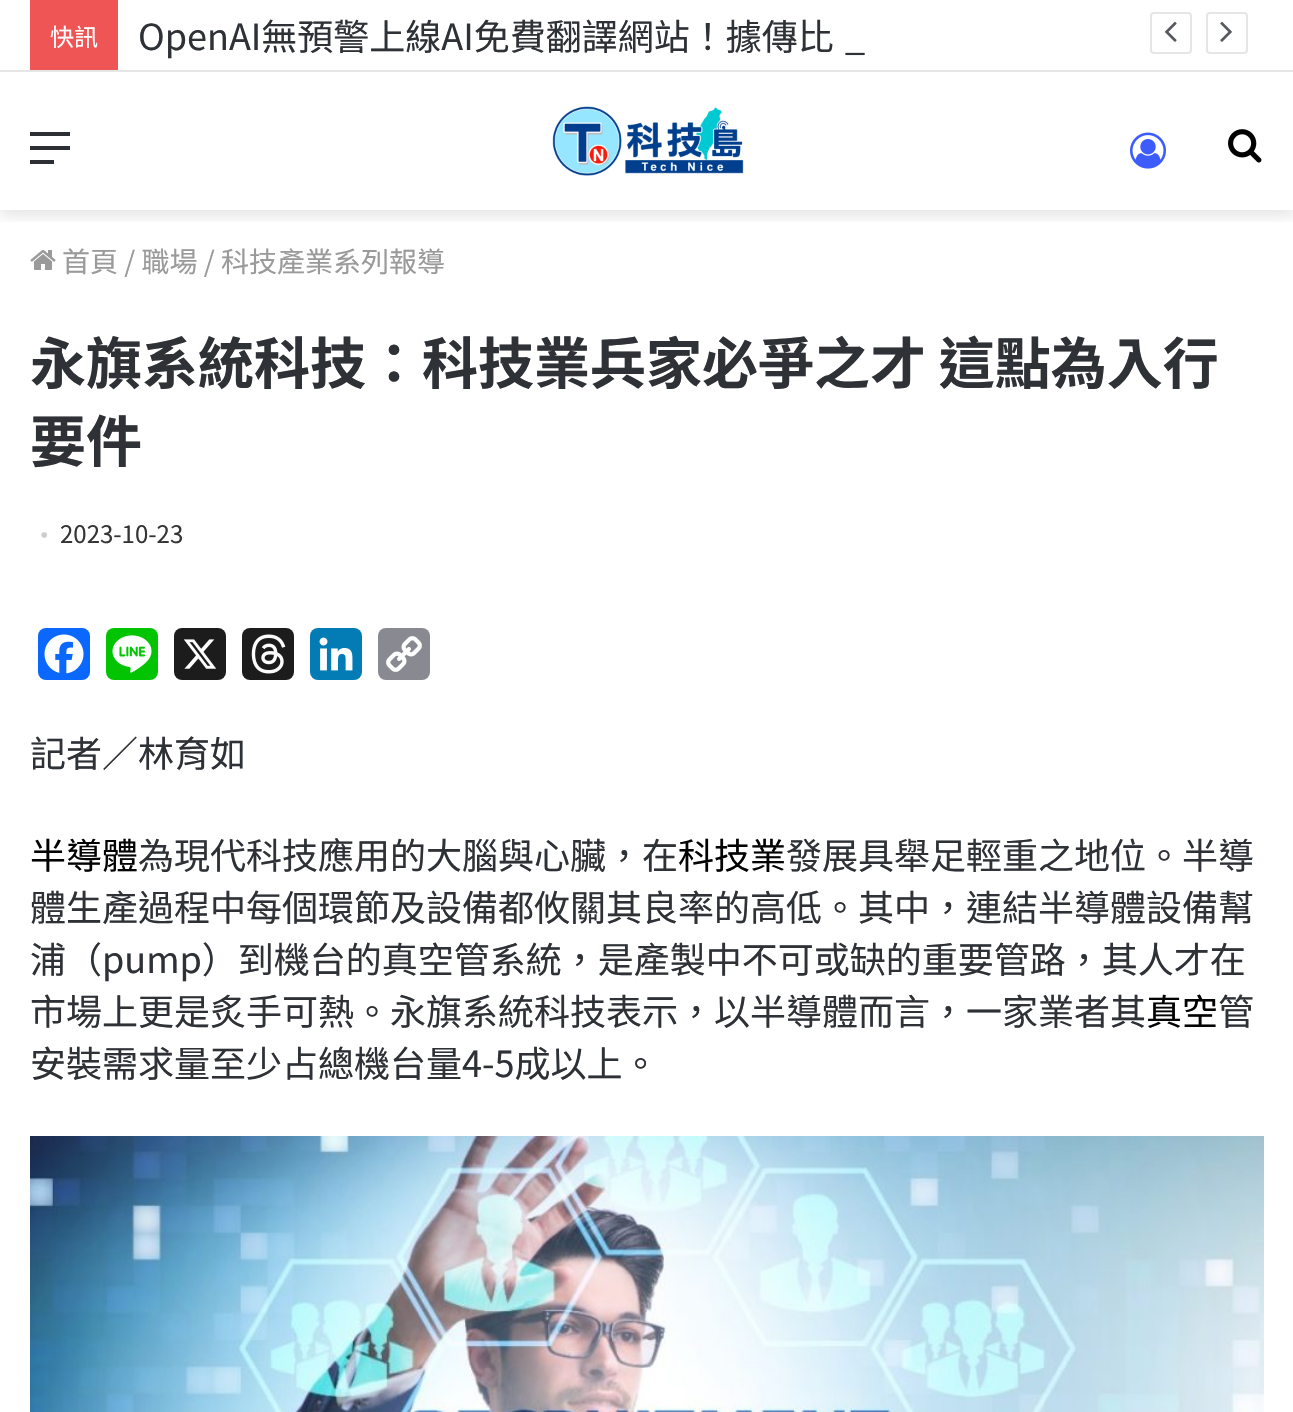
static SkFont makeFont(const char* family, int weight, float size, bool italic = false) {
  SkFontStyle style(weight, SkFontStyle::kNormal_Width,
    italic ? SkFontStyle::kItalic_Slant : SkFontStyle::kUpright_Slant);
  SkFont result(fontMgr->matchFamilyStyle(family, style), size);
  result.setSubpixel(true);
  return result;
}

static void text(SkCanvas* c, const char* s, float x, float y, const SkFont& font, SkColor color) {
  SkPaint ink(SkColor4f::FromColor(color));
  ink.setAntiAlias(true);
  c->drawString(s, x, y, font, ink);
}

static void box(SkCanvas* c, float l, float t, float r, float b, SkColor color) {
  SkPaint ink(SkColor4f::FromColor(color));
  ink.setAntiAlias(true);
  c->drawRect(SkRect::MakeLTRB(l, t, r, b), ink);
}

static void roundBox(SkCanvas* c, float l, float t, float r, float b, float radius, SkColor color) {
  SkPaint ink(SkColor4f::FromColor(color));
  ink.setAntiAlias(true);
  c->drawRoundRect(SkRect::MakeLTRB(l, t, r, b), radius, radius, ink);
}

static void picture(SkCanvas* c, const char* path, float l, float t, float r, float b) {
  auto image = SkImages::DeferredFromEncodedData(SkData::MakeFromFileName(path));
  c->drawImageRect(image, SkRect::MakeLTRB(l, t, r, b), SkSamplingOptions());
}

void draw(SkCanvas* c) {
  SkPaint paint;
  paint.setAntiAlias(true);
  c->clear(0xffffffff);
  c->save();
  c->clipRect(SkRect::MakeLTRB(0, 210, 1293, 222));
  paint.setColor(0x1a000000);
  paint.setMaskFilter(SkMaskFilter::MakeBlur(kNormal_SkBlurStyle, 7));
  c->drawRect(SkRect::MakeLTRB(0, 78, 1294, 216), paint);
  paint.setMaskFilter(nullptr);
  c->restore();
  box(c, 9, 69, 1285, 70, 0xffffffff);
  box(c, 0, 70, 1293, 72, 0xffe6e6e6);
  box(c, 30, 0, 118, 70, 0xfff05555);
  SkFont face1 = makeFont("Noto Sans TC", 400, 24);
  text(c, "快訊", 50, 46, face1, 0xffffffff);
  SkFont face2 = makeFont("Noto Sans TC", 400, 36);
  text(c, "OpenAI無預警上線AI免費翻譯網站！據傳比", 138, 50, face2, 0xff2e3136);
  text(c, "_", 845, 50, face2, 0xff2e3136);
  paint.setStyle(SkPaint::kStroke_Style);
  paint.setStrokeWidth(2);
  paint.setColor(0xffe6e6e6);
  c->drawRoundRect(SkRect::MakeLTRB(1151, 13, 1191, 53), 3, 3, paint);
  picture(c, "img_01.png", 1164, 21, 1177, 42);
  c->drawRoundRect(SkRect::MakeLTRB(1207, 13, 1247, 53), 3, 3, paint);
  picture(c, "img_02.png", 1220, 21, 1232, 42);
  box(c, 30, 146, 70, 150, 0xff2c2f34);
  box(c, 30, 132, 70, 136, 0xff2c2f34);
  box(c, 30, 160, 54, 164, 0xff2c2f34);
  picture(c, "img_03.png", 552, 106, 744, 176);
  picture(c, "img_04.png", 1130, 132, 1166, 169);
  picture(c, "img_05.png", 1228, 129, 1262, 163);
  picture(c, "img_06.png", 30, 250, 56, 270);
  SkFont face3 = makeFont("Noto Sans TC", 400, 28);
  text(c, "首頁 / 職場 / 科技產業系列報導", 62, 272, face3, 0xff9a9a9a);
  SkFont face4 = makeFont("Noto Sans TC", 700, 56);
  text(c, "永旗系統科技：科技業兵家必爭之才 這點為入行", 30, 384, face4, 0xff2e3136);
  text(c, "要件", 30, 462, face4, 0xff2e3136);
  SkFont face5 = makeFont("Liberation Serif", 400, 24);
  text(c, "•", 40, 543, face5, 0xffcdcdcd);
  text(c, "2023-10-23", 60, 543, face1, 0xff353535);
  roundBox(c, 38, 628, 90, 680, 8, 0xff0a68ff);
  picture(c, "img_07.png", 44, 634, 84, 674);
  roundBox(c, 106, 628, 158, 680, 8, 0xff03c403);
  picture(c, "img_08.png", 112, 635, 152, 673);
  roundBox(c, 174, 628, 226, 680, 8, 0xff1c1c1c);
  picture(c, "img_09.png", 183, 639, 217, 669);
  roundBox(c, 242, 628, 294, 680, 8, 0xff1c1c1c);
  picture(c, "img_10.png", 251, 634, 286, 674);
  roundBox(c, 310, 628, 362, 680, 8, 0xff037cb6);
  picture(c, "img_11.png", 319, 637, 353, 671);
  roundBox(c, 378, 628, 430, 680, 8, 0xff898a91);
  picture(c, "img_12.png", 386, 636, 422, 672);
  text(c, "記者／林育如", 30, 767, face2, 0xff2e3136);
  text(c, "半導體", 30, 869, face2, 0xff030303);
  text(c, "為現代科技應用的大腦與心臟，在", 138, 869, face2, 0xff2e3136);
  text(c, "科技業", 678, 869, face2, 0xff030303);
  text(c, "發展具舉足輕重之地位。半導", 786, 869, face2, 0xff2e3136);
  text(c, "體生產過程中每個環節及設備都攸關其良率的高低。其中，連結半導體設備幫", 30, 921, face2, 0xff2e3136);
  text(c, "浦（pump）到機台的真空管系統，是產製中不可或缺的重要管路，其人才在", 30, 973, face2, 0xff2e3136);
  text(c, "市場上更是炙手可熱。永旗系統科技表示，以半導體而言，一家業者其", 30, 1025, face2, 0xff2e3136);
  text(c, "真空", 1146, 1025, face2, 0xff030303);
  text(c, "管", 1218, 1025, face2, 0xff2e3136);
  text(c, "安裝需求量至少占總機台量4-5成以上。", 30, 1077, face2, 0xff2e3136);
  picture(c, "img_13.png", 30, 1136, 1264, 1412);
}
